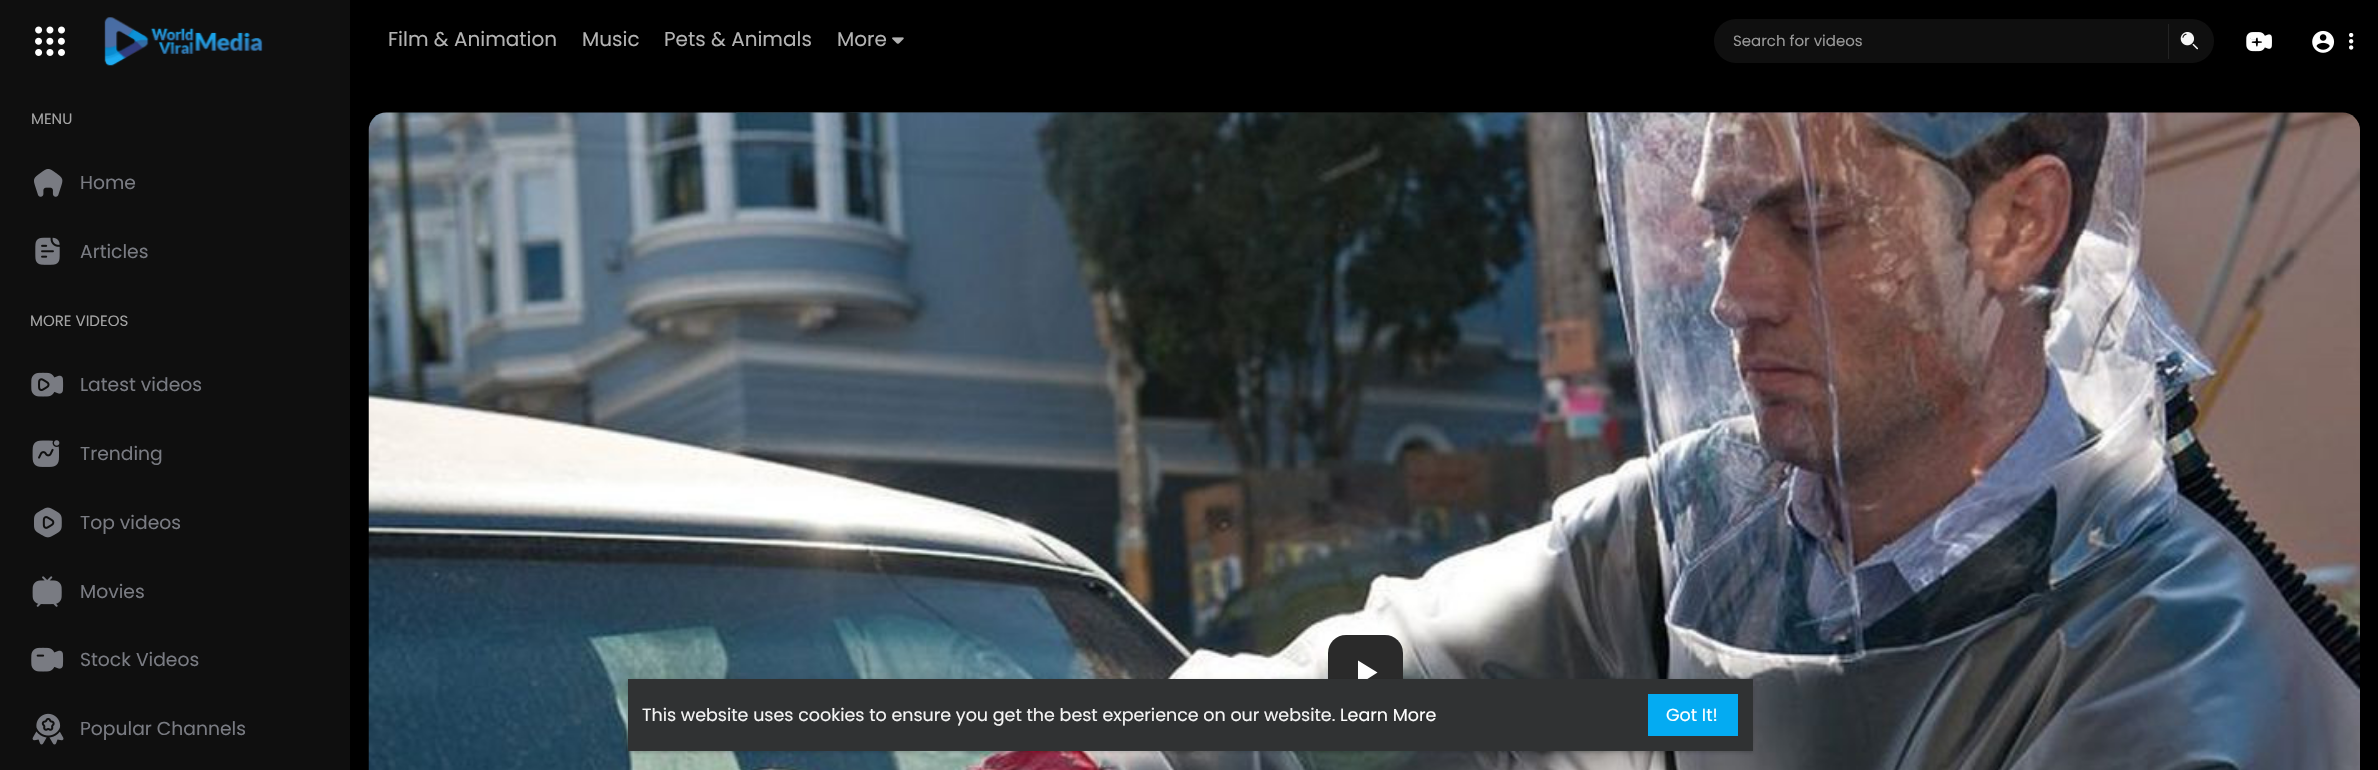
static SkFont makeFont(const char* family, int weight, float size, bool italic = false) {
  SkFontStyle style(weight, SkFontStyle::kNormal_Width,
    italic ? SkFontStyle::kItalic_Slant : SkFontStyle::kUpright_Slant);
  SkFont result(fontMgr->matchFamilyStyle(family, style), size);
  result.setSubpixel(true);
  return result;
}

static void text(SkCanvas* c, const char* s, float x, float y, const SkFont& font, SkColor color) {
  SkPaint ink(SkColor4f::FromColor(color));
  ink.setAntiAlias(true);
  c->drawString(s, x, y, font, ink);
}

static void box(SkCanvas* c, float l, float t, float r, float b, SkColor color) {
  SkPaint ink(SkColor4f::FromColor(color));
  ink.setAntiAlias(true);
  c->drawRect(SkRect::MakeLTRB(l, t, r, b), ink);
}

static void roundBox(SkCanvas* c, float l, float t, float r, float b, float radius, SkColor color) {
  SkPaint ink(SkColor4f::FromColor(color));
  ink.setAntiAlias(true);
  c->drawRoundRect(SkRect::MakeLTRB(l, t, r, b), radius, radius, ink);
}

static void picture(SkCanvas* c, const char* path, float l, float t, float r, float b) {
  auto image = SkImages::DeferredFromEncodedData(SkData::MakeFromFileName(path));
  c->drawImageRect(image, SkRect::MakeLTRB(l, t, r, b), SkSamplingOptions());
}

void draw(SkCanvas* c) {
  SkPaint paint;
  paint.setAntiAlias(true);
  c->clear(0xff000000);
  box(c, 0, 0, 350, 83, 0xff0f0f0f);
  picture(c, "img_01.png", 35, 26, 65, 56);
  SkFont face1 = makeFont("Poppins", 400, 20);
  text(c, "Film & Animation", 388, 46, face1, 0xffb3b3b3);
  text(c, "Music", 582, 46, face1, 0xffb3b3b3);
  text(c, "Pets & Animals", 664, 46, face1, 0xffb3b3b3);
  text(c, "More", 837, 46, face1, 0xffb3b3b3);
  picture(c, "img_02.png", 892, 37, 904, 44);
  roundBox(c, 1714, 19, 2214, 63, 22, 0xff0f0f0f);
  SkFont face2 = makeFont("Poppins", 400, 15);
  text(c, "Search for videos", 1733, 46, face2, 0xff999999);
  box(c, 2168, 24, 2169, 59, 0xff232323);
  picture(c, "img_03.png", 2180, 32, 2198, 50);
  picture(c, "img_04.png", 2246, 32, 2272, 52);
  picture(c, "img_05.png", 2312, 30, 2335, 53);
  picture(c, "img_06.png", 2349, 33, 2354, 50);
  picture(c, "img_07.png", 104, 17, 263, 66);
  box(c, 0, 83, 350, 770, 0xff0f0f0f);
  text(c, "MENU", 31, 124, face2, 0xffa4a4a4);
  picture(c, "img_08.png", 34, 169, 63, 197);
  SkFont face3 = makeFont("Poppins", 400, 18.75f);
  text(c, "Home", 80, 189, face3, 0xff797b82);
  picture(c, "img_09.png", 35, 237, 60, 265);
  text(c, "Articles", 80, 258, face3, 0xff797b82);
  text(c, "MORE VIDEOS", 30, 326, face2, 0xffa4a4a4);
  picture(c, "img_10.png", 31, 372, 64, 397);
  text(c, "Latest videos", 80, 391, face3, 0xff797b82);
  picture(c, "img_11.png", 32, 440, 60, 467);
  text(c, "Trending", 80, 460, face3, 0xff797b82);
  picture(c, "img_12.png", 34, 507, 62, 538);
  text(c, "Top videos", 80, 529, face3, 0xff797b82);
  picture(c, "img_13.png", 32, 576, 62, 607);
  text(c, "Movies", 80, 598, face3, 0xff797b82);
  picture(c, "img_14.png", 31, 647, 64, 672);
  text(c, "Stock Videos", 80, 666, face3, 0xff797b82);
  picture(c, "img_15.png", 32, 713, 64, 745);
  text(c, "Popular Channels", 80, 735, face3, 0xff797b82);
  picture(c, "img_17.png", 736, 112, 1993, 113);
  picture(c, "img_16.png", 368, 112, 2360, 770);
  roundBox(c, 1328, 635, 1403, 710, 18, 0xff2a2a2a);
  paint.setColor(0xffffffff);
  c->drawPath(SkPathBuilder().moveTo(1358, 660.5f).lineTo(1358, 685).lineTo(1377.5f, 672.5f).close().detach(), paint);
  paint.setColor(0x0f000000);
  paint.setMaskFilter(SkMaskFilter::MakeBlur(kNormal_SkBlurStyle, 1));
  c->drawRect(SkRect::MakeLTRB(628, 680, 1753, 753), paint);
  paint.setMaskFilter(nullptr);
  paint.setColor(0x1a000000);
  paint.setMaskFilter(SkMaskFilter::MakeBlur(kNormal_SkBlurStyle, 2));
  c->drawRect(SkRect::MakeLTRB(628, 680, 1753, 753), paint);
  paint.setMaskFilter(nullptr);
  box(c, 628, 679, 1753, 751, 0xff303233);
  SkFont face4 = makeFont("Poppins", 400, 17.5f);
  text(c, "This website uses cookies to ensure you get the best experience on our website.", 642, 721, face4, 0xfff5f5f5);
  text(c, "Learn More", 1340, 721, face4, 0xffffffff);
  box(c, 1648, 694, 1738, 736, 0xff04abf2);
  text(c, "Got It!", 1666, 721, face4, 0xffffffff);
}
